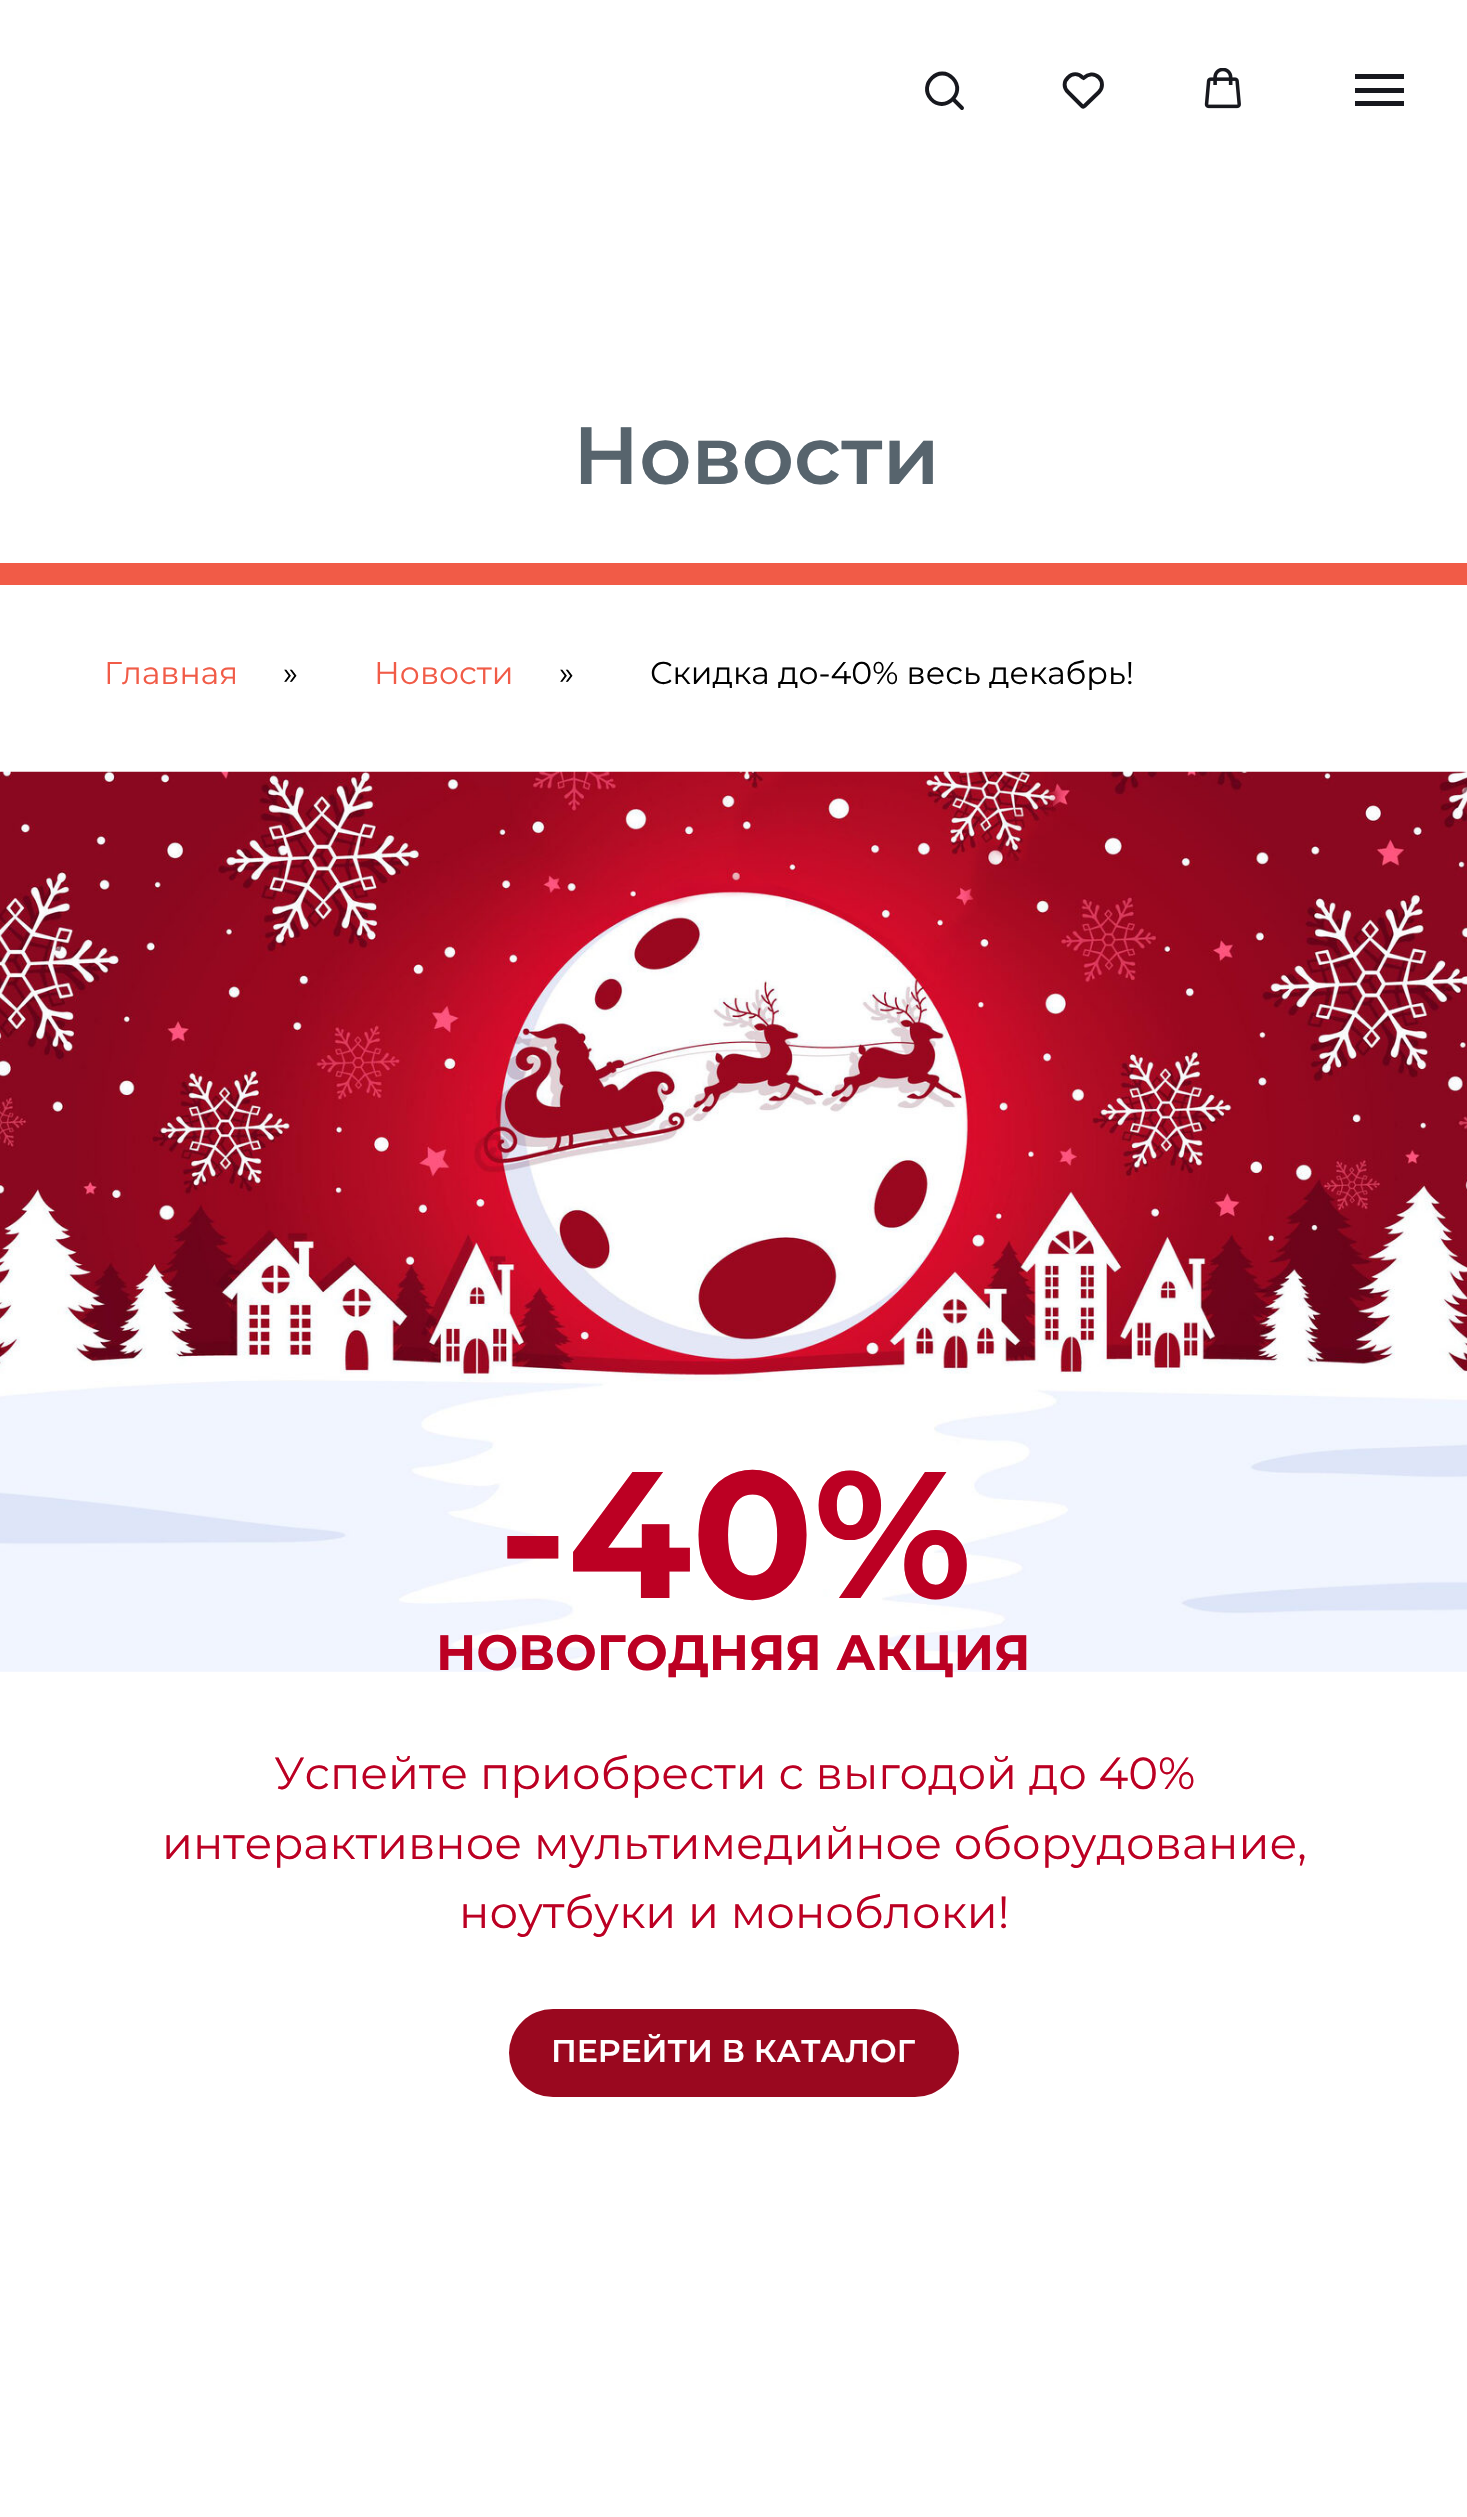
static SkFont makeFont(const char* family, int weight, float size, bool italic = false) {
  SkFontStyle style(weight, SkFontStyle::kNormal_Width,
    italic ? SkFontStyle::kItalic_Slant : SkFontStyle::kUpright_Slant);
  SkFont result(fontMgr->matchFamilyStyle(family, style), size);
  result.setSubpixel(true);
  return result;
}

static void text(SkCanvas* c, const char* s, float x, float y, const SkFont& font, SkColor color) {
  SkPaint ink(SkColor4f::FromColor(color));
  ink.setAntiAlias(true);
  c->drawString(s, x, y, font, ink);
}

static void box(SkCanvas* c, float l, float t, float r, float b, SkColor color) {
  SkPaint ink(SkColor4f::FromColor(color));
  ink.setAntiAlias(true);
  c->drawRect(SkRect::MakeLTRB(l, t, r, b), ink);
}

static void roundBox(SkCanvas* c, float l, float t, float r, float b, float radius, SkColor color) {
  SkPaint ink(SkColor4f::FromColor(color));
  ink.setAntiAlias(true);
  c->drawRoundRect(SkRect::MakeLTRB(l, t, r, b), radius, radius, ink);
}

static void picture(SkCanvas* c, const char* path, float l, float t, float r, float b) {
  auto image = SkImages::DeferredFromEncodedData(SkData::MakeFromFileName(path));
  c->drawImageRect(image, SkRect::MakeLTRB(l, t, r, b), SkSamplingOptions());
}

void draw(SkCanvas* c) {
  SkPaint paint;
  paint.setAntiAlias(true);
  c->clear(0xffffffff);
  paint.setStyle(SkPaint::kStroke_Style);
  paint.setStrokeWidth(3.9f);
  paint.setColor(0xff17181e);
  c->drawPath(SkPathBuilder().moveTo(953, 78.5f).cubicTo(966.5f, 93, 944.5f, 113.5f, 931, 99).cubicTo(918, 84.5f, 939.5f, 64, 953, 78.5f).close().detach(), paint);
  paint.setStrokeCap(SkPaint::kRound_Cap);
  c->drawPath(SkPathBuilder().moveTo(954.5f, 100.5f).lineTo(962, 108).detach(), paint);
  c->drawPath(SkPathBuilder().moveTo(1099, 77.5f).cubicTo(1103, 81.5f, 1103, 88, 1099, 92).lineTo(1084.5f, 106).cubicTo(1084, 107, 1083, 107, 1082, 106).lineTo(1068, 92).cubicTo(1063.5f, 88, 1063.5f, 81.5f, 1068, 77.5f).cubicTo(1072, 73, 1078.5f, 73, 1082.5f, 77.5f).lineTo(1083.5f, 78).cubicTo(1088, 74, 1094, 72.5f, 1099, 77.5f).close().detach(), paint);
  picture(c, "img_01.png", 1204, 68, 1241, 109);
  box(c, 1355, 74, 1404, 79, 0xff17181e);
  box(c, 1355, 88, 1404, 93, 0xff17181e);
  box(c, 1355, 101, 1404, 106, 0xff17181e);
  SkFont face1 = makeFont("Montserrat", 600, 81);
  text(c, "Новости", 573, 484, face1, 0xff57646d);
  c->save();
  c->clipRect(SkRect::MakeLTRB(0, 563, 1467, 585));
  paint.setStyle(SkPaint::kFill_Style);
  paint.setColor(0xfff15b47);
  c->drawPath(SkPathBuilder().moveTo(-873, 585).cubicTo(-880, 585, -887, 579, -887, 572).lineTo(-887, 563).lineTo(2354, 562).lineTo(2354, 571).cubicTo(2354, 579, 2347, 585, 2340, 585).close().detach(), paint);
  c->restore();
  SkFont face2 = makeFont("Montserrat", 100, 31.5f);
  text(c, "Главная", 104, 684, face2, 0xfff15b47);
  text(c, "»", 283, 684, face2, 0xff000000);
  text(c, "Новости", 374, 684, face2, 0xfff15b47);
  text(c, "»", 559, 684, face2, 0xff000000);
  text(c, "Скидка до-40% весь декабрь!", 650, 684, face2, 0xff000000);
  picture(c, "img_02.png", 0, 771, 1467, 1672);
  SkFont face3 = makeFont("Montserrat", 700, 180);
  text(c, "-40%", 498, 1598, face3, 0xffbc0023);
  SkFont face4 = makeFont("Montserrat", 700, 49.5f);
  text(c, "НОВОГОДНЯЯ АКЦИЯ", 436, 1670, face4, 0xffbc0023);
  SkFont face5 = makeFont("Montserrat", 100, 45);
  text(c, "Успейте приобрести с выгодой до 40%", 274, 1789, face5, 0xffbc0023);
  text(c, "интерактивное мультимедийное оборудование,", 162, 1859, face5, 0xffbc0023);
  text(c, "ноутбуки и моноблоки!", 459, 1928, face5, 0xffbc0023);
  roundBox(c, 509, 2009, 959, 2097, 44, 0xff9a081f);
  SkFont face6 = makeFont("Montserrat", 600, 31.5f);
  text(c, "ПЕРЕЙТИ В КАТАЛОГ", 551, 2062, face6, 0xffffffff);
}
